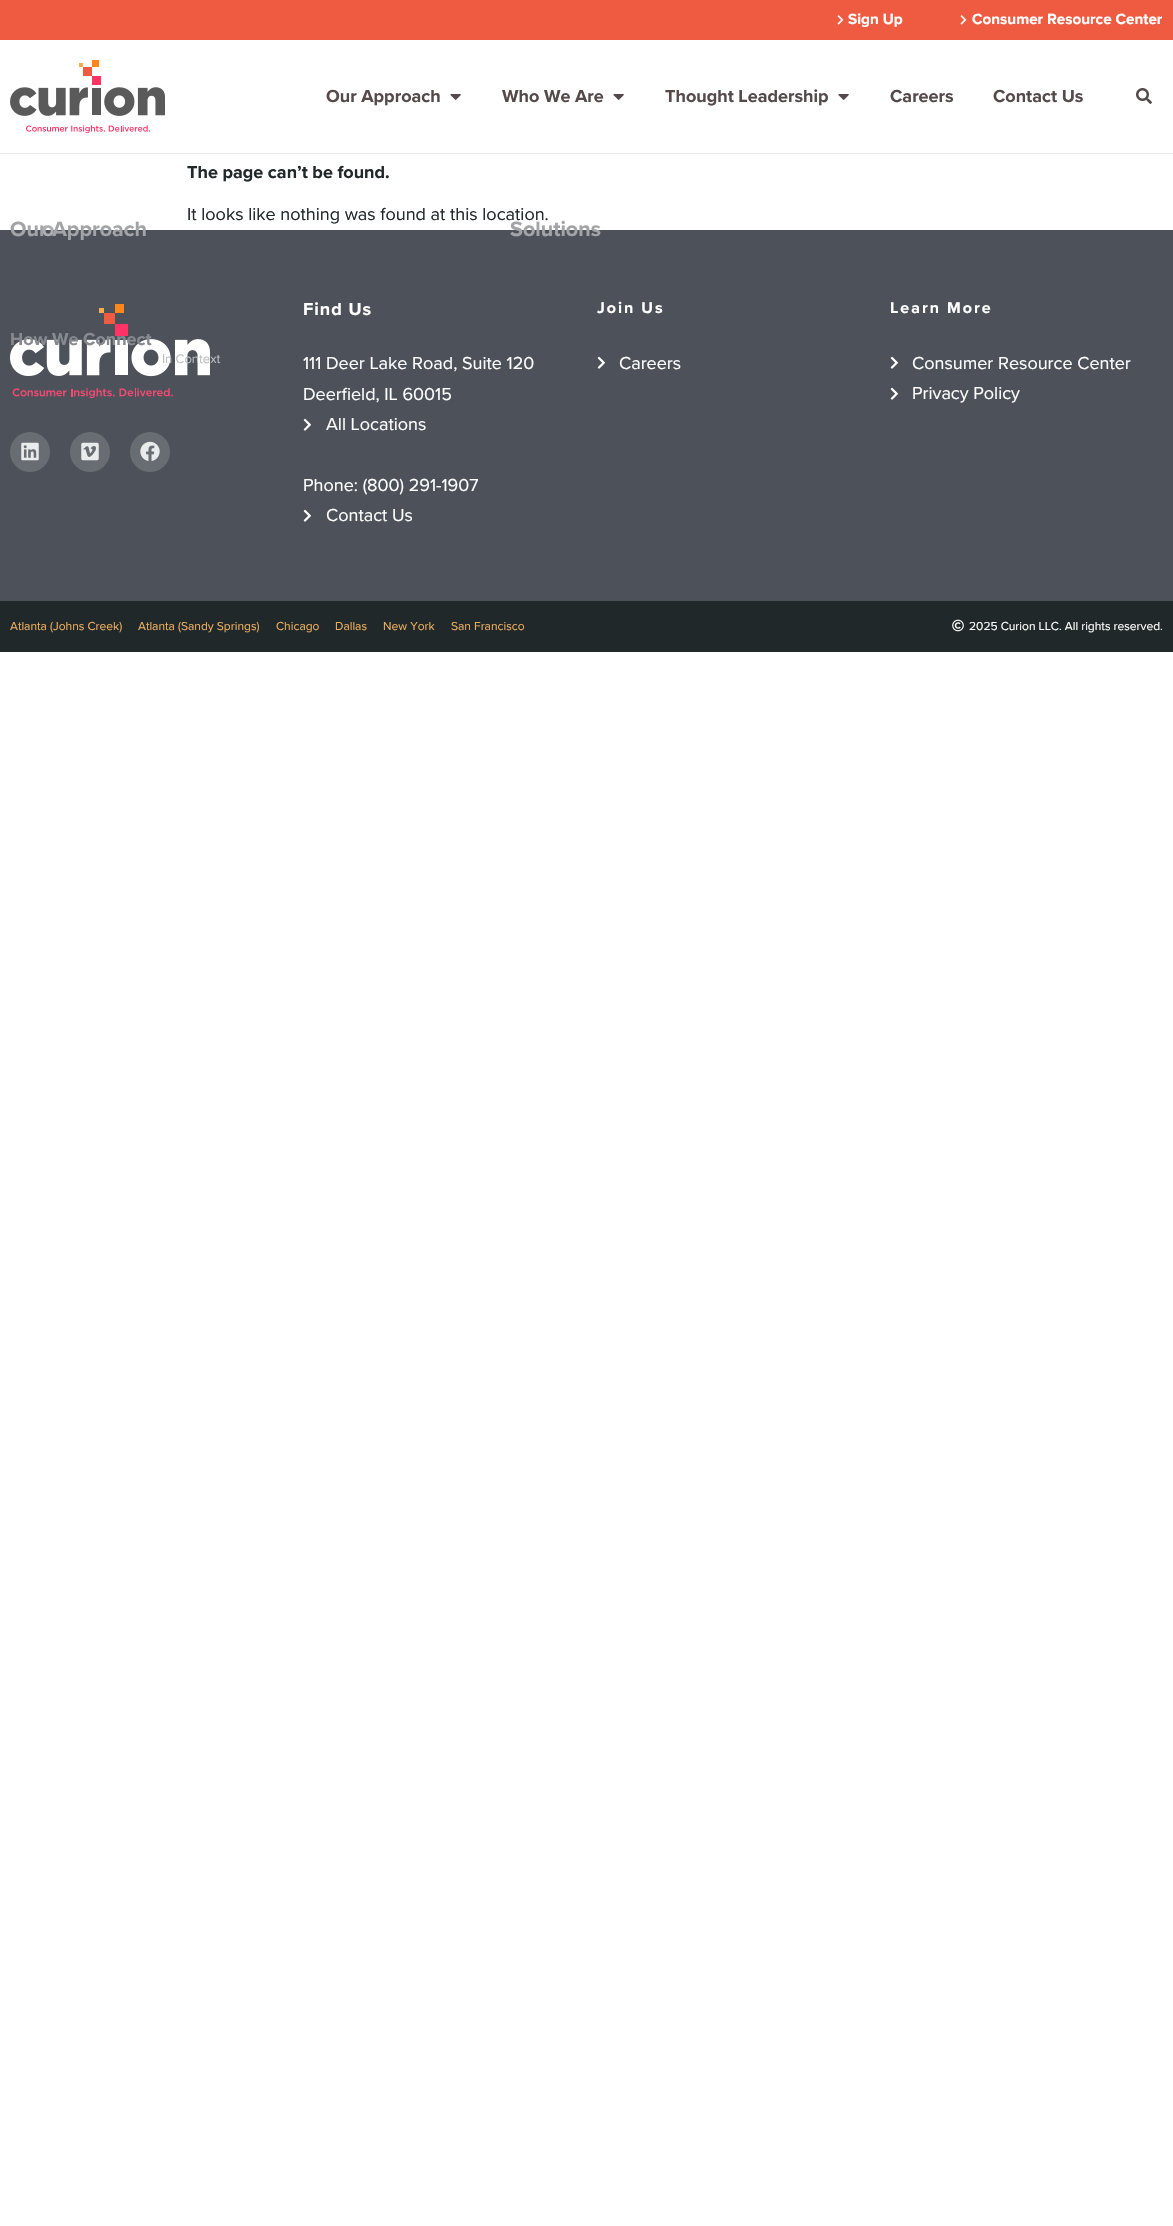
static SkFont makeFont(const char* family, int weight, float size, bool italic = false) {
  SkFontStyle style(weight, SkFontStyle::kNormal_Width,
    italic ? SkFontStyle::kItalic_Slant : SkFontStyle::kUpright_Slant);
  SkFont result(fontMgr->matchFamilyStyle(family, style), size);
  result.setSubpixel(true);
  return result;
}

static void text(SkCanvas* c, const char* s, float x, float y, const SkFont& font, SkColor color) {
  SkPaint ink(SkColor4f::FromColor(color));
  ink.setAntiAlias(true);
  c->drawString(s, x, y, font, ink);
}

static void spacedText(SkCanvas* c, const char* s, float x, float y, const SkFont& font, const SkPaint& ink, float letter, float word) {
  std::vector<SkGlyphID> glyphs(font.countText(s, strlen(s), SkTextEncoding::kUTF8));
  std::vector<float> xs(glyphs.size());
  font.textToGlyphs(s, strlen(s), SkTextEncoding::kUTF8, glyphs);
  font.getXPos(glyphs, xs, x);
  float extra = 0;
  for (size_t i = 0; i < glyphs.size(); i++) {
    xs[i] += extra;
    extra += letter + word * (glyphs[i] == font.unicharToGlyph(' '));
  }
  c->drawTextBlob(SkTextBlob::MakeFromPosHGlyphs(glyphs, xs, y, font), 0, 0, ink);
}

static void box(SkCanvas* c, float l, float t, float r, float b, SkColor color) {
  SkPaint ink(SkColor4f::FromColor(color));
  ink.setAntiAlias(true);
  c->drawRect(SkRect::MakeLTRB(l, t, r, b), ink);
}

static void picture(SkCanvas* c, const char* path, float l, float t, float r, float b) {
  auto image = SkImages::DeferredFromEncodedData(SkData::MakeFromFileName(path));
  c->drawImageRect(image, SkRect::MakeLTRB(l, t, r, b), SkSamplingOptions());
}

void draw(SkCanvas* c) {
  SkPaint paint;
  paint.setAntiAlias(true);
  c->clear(0xffffffff);
  box(c, 0, 153, 1173, 154, 0xffe8ecec);
  box(c, 0, 0, 1173, 40, 0xffef5b40);
  picture(c, "img_01.png", 837, 15, 844, 25);
  SkFont face1 = makeFont("Proxima Nova", 700, 15.25f);
  text(c, "Sign Up", 848, 24, face1, 0xffffffff);
  picture(c, "img_01.png", 960, 15, 967, 25);
  text(c, "Consumer Resource Center", 972, 24, face1, 0xffffffff);
  picture(c, "img_02.png", 10, 60, 165, 133);
  SkFont face2 = makeFont("Proxima Nova", 700, 18);
  text(c, "Our Approach", 326, 102, face2, 0xff544a4c);
  picture(c, "img_03.png", 450, 94, 461, 100);
  text(c, "Who We Are", 502, 102, face2, 0xff544a4c);
  picture(c, "img_03.png", 613, 94, 624, 100);
  text(c, "Thought Leadership", 665, 102, face2, 0xff544a4c);
  picture(c, "img_03.png", 838, 94, 849, 100);
  text(c, "Careers", 890, 102, face2, 0xff544a4c);
  text(c, "Contact Us", 993, 102, face2, 0xff544a4c);
  picture(c, "img_04.png", 1136, 88, 1152, 104);
  box(c, 0, 230, 1173, 601, 0xff4d525a);
  SkFont face3 = makeFont("Proxima Nova", 700, 21.5f);
  text(c, "Our Approach", 10, 236, face3, 0xffa2a4a8);
  picture(c, "img_05.png", 10, 304, 210, 398);
  text(c, "How We Connect", 10, 345, face2, 0xff878a90);
  SkFont face4 = makeFont("Proxima Nova", 400, 13);
  text(c, "In Context", 162, 363, face4, 0xffbbbdc0);
  text(c, "Solutions", 510, 236, face3, 0xffa2a4a8);
  text(c, "o", 42, 236, face3, 0xffadafb3);
  text(c, "I", 162, 363, face4, 0xffbbbdc0);
  text(c, "The page can’t be found.", 187, 178, face2, 0xff21282a);
  SkFont face5 = makeFont("Proxima Nova", 400, 18);
  text(c, "It looks like nothing was found at this location.", 187, 220, face5, 0xff21282a);
  paint.setColor(0xff686c73);
  c->drawCircle(30, 452, 20, paint);
  picture(c, "img_06.png", 21, 442, 39, 461);
  c->drawCircle(90, 452, 20, paint);
  picture(c, "img_07.png", 81, 442, 99, 461);
  c->drawCircle(150, 452, 20, paint);
  picture(c, "img_08.png", 140, 441, 160, 461);
  paint.setColor(0xffffffff);
  spacedText(c, "Find Us", 303, 315, face2, paint, 1, 0);
  text(c, "111 Deer Lake Road, Suite 120", 303, 369, face5, 0xffffffff);
  text(c, "Deerfield, IL 60015", 303, 400, face5, 0xffffffff);
  picture(c, "img_09.png", 303, 418, 311, 431);
  text(c, "All Locations", 326, 430, face5, 0xffffffff);
  text(c, "Phone: (800) 291-1907", 303, 491, face5, 0xffffffff);
  picture(c, "img_09.png", 303, 509, 311, 522);
  text(c, "Contact Us", 326, 521, face5, 0xffffffff);
  SkFont face6 = makeFont("Proxima Nova", 700, 16);
  spacedText(c, "Join Us", 597, 313, face6, paint, 2, 0);
  picture(c, "img_09.png", 597, 356, 605, 369);
  text(c, "Careers", 619, 369, face5, 0xffffffff);
  spacedText(c, "Learn More", 890, 313, face6, paint, 2, 0);
  picture(c, "img_09.png", 890, 356, 898, 369);
  text(c, "Consumer Resource Center", 912, 369, face5, 0xffffffff);
  picture(c, "img_09.png", 890, 387, 898, 400);
  text(c, "Privacy Policy", 912, 399, face5, 0xffffffff);
  box(c, 0, 601, 1173, 652, 0xff21282a);
  SkFont face7 = makeFont("Proxima Nova", 400, 12);
  text(c, "Atlanta (Johns Creek)", 10, 630, face7, 0xffedaf5f);
  text(c, "Atlanta (Sandy Springs)", 138, 630, face7, 0xffedaf5f);
  text(c, "Chicago", 276, 630, face7, 0xffedaf5f);
  text(c, "Dallas", 335, 630, face7, 0xffedaf5f);
  text(c, "New York", 383, 630, face7, 0xffedaf5f);
  text(c, "San Francisco", 451, 630, face7, 0xffedaf5f);
  picture(c, "img_10.png", 952, 619, 964, 632);
  text(c, "2025 Curion LLC. All rights reserved.", 969, 630, face7, 0xffffffff);
}
